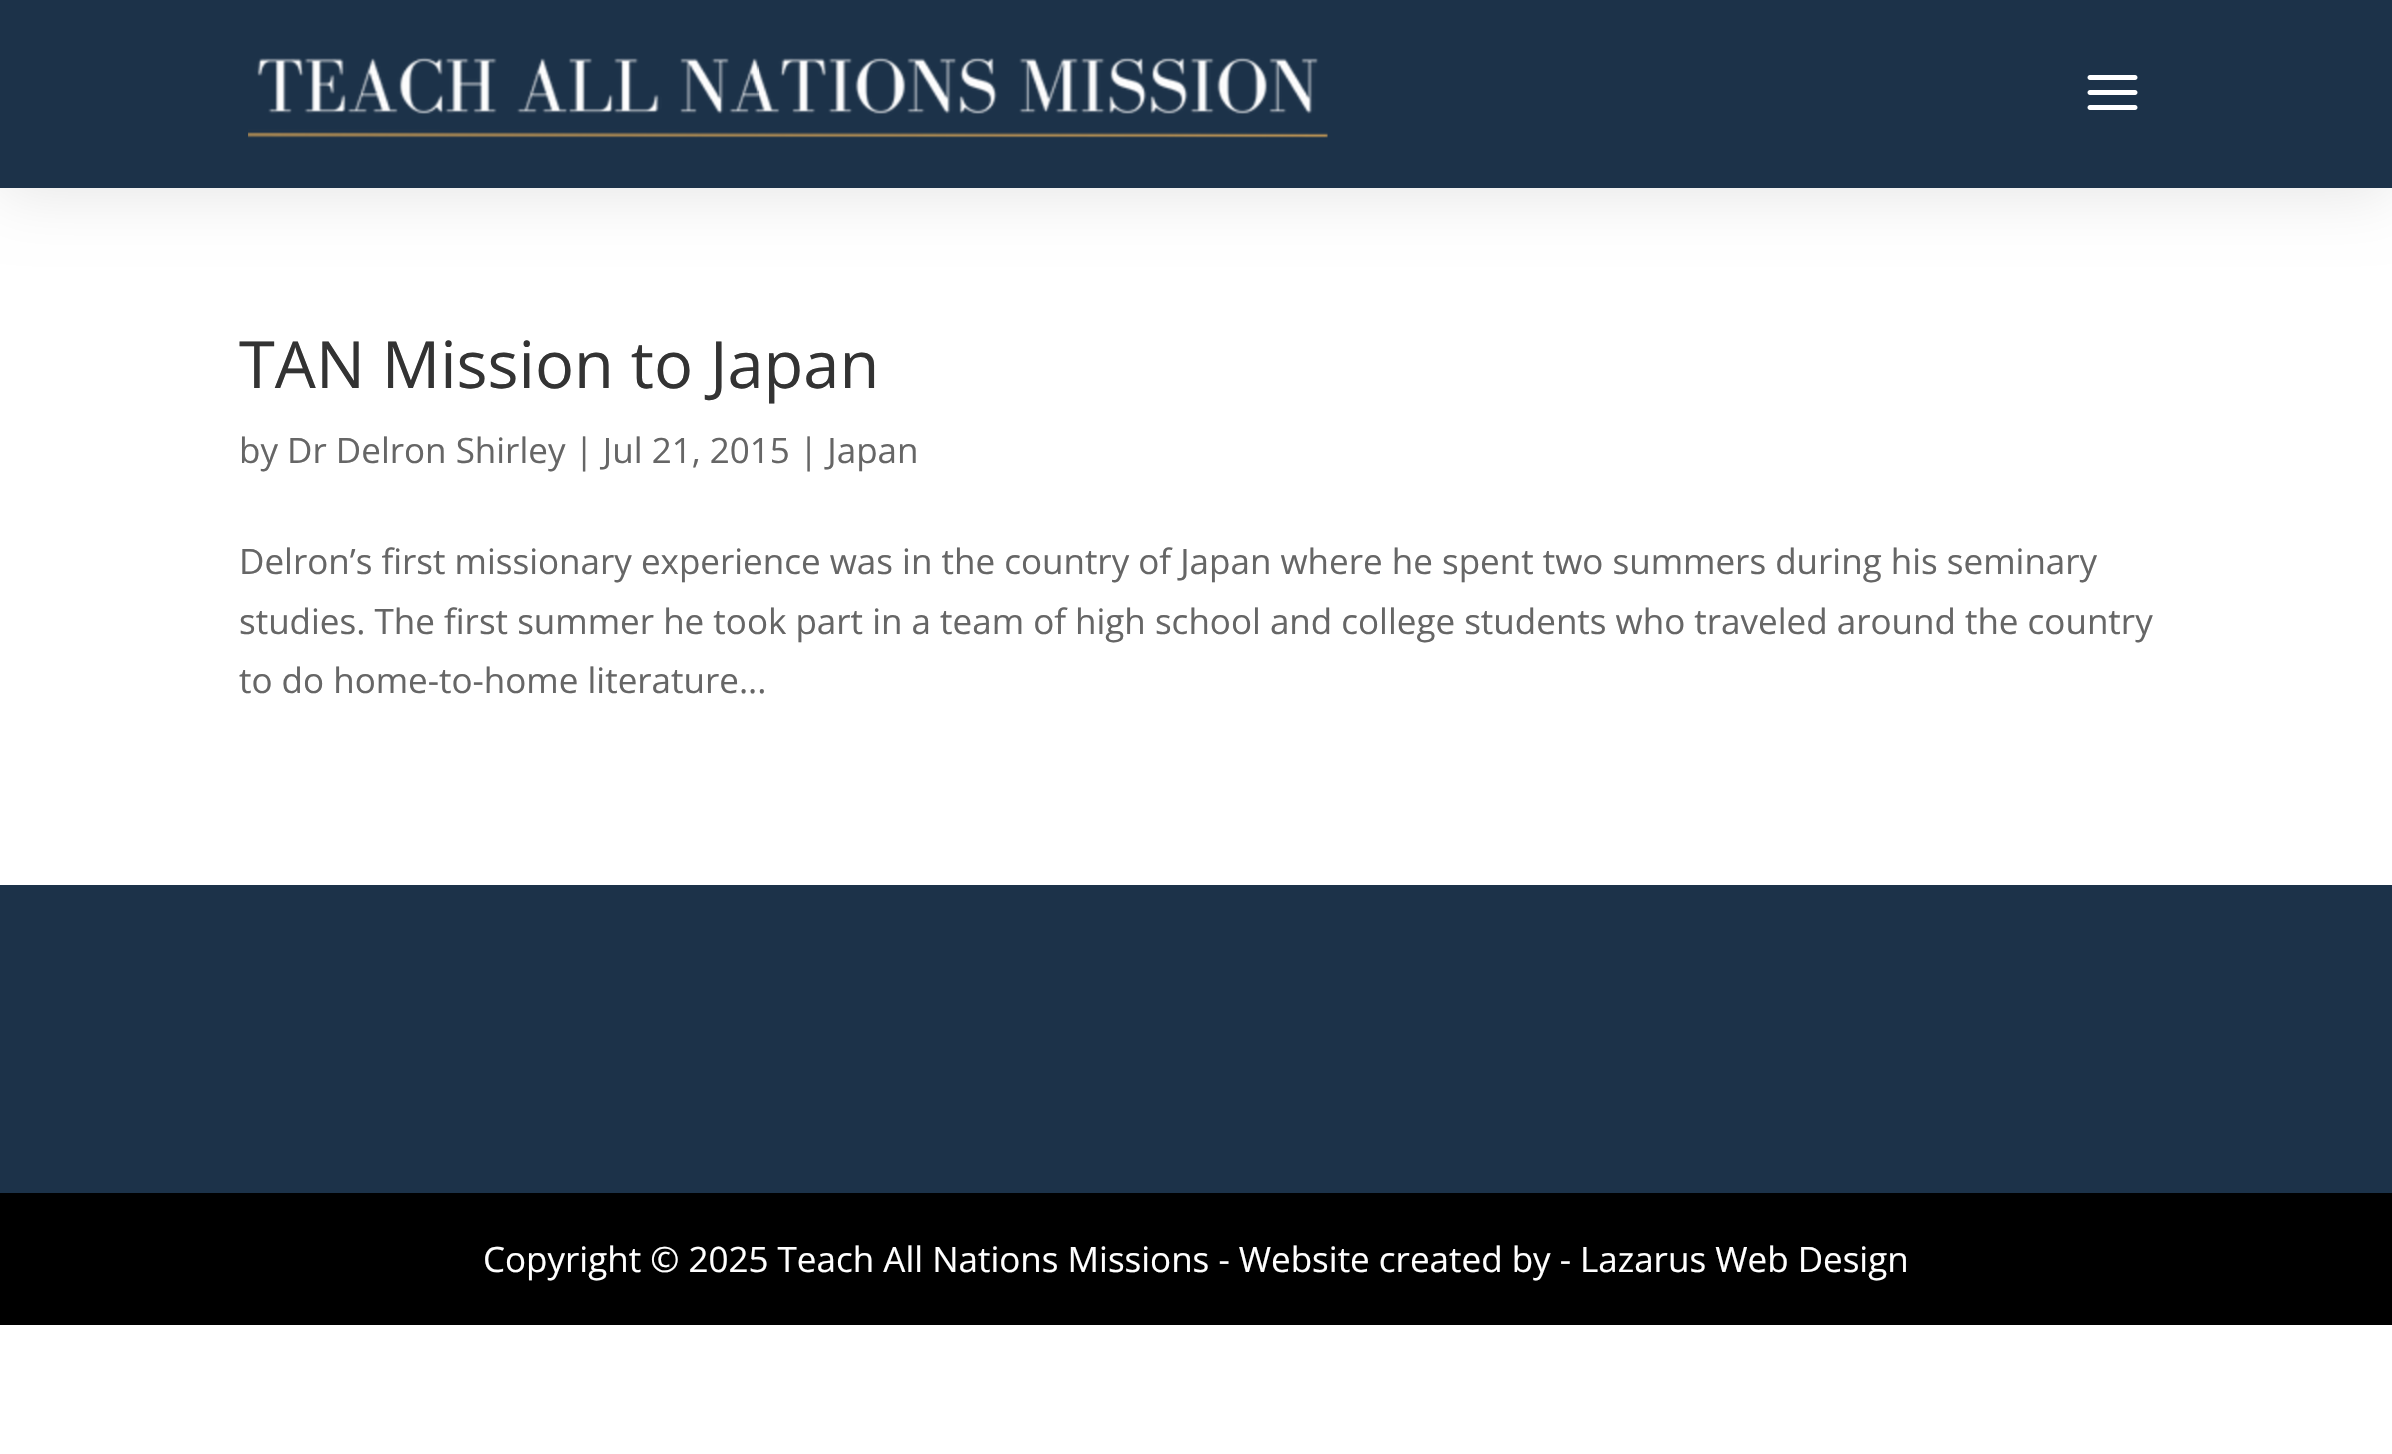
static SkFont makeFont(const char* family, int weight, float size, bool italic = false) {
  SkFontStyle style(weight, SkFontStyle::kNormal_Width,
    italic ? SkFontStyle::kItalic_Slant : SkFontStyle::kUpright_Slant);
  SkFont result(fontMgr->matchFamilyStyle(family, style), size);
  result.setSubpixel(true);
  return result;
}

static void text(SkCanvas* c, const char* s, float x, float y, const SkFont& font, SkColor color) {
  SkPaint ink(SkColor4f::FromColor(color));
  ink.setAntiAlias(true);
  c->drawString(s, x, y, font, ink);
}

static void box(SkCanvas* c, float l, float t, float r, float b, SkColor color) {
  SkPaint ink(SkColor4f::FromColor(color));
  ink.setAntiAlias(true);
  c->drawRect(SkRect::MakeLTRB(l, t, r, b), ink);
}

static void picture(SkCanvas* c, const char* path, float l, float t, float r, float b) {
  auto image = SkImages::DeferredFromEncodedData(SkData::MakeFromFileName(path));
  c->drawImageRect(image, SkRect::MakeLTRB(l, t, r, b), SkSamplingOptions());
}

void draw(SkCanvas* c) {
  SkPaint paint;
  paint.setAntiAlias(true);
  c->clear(0xffffffff);
  paint.setColor(0x1a000000);
  paint.setMaskFilter(SkMaskFilter::MakeBlur(kNormal_SkBlurStyle, 31));
  c->drawRect(SkRect::MakeLTRB(0, 5, 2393, 193), paint);
  paint.setMaskFilter(nullptr);
  box(c, 0, 0, 2392, 188, 0xff1c3249);
  picture(c, "img_01.png", 248, 57, 1328, 138);
  picture(c, "img_02.png", 2087, 75, 2138, 110);
  SkFont face1 = makeFont("Open Sans", 400, 65);
  text(c, "TAN Mission to Japan", 239, 388, face1, 0xff333333);
  SkFont face2 = makeFont("Open Sans", 400, 35);
  text(c, "by Dr Delron Shirley | Jul 21, 2015 | Japan", 239, 463, face2, 0xff666666);
  text(c, "Delron’s first missionary experience was in the country of Japan where he spent two summers during his seminary", 239, 574, face2, 0xff666666);
  text(c, "studies. The first summer he took part in a team of high school and college students who traveled around the country", 239, 634, face2, 0xff666666);
  text(c, "to do home-to-home literature...", 239, 693, face2, 0xff666666);
  box(c, 0, 885, 2392, 1193, 0xff1c3249);
  box(c, 0, 1193, 2392, 1325, 0xff000000);
  text(c, "Copyright © 2025 Teach All Nations Missions - Website created by - Lazarus Web Design", 483, 1272, face2, 0xffffffff);
}
